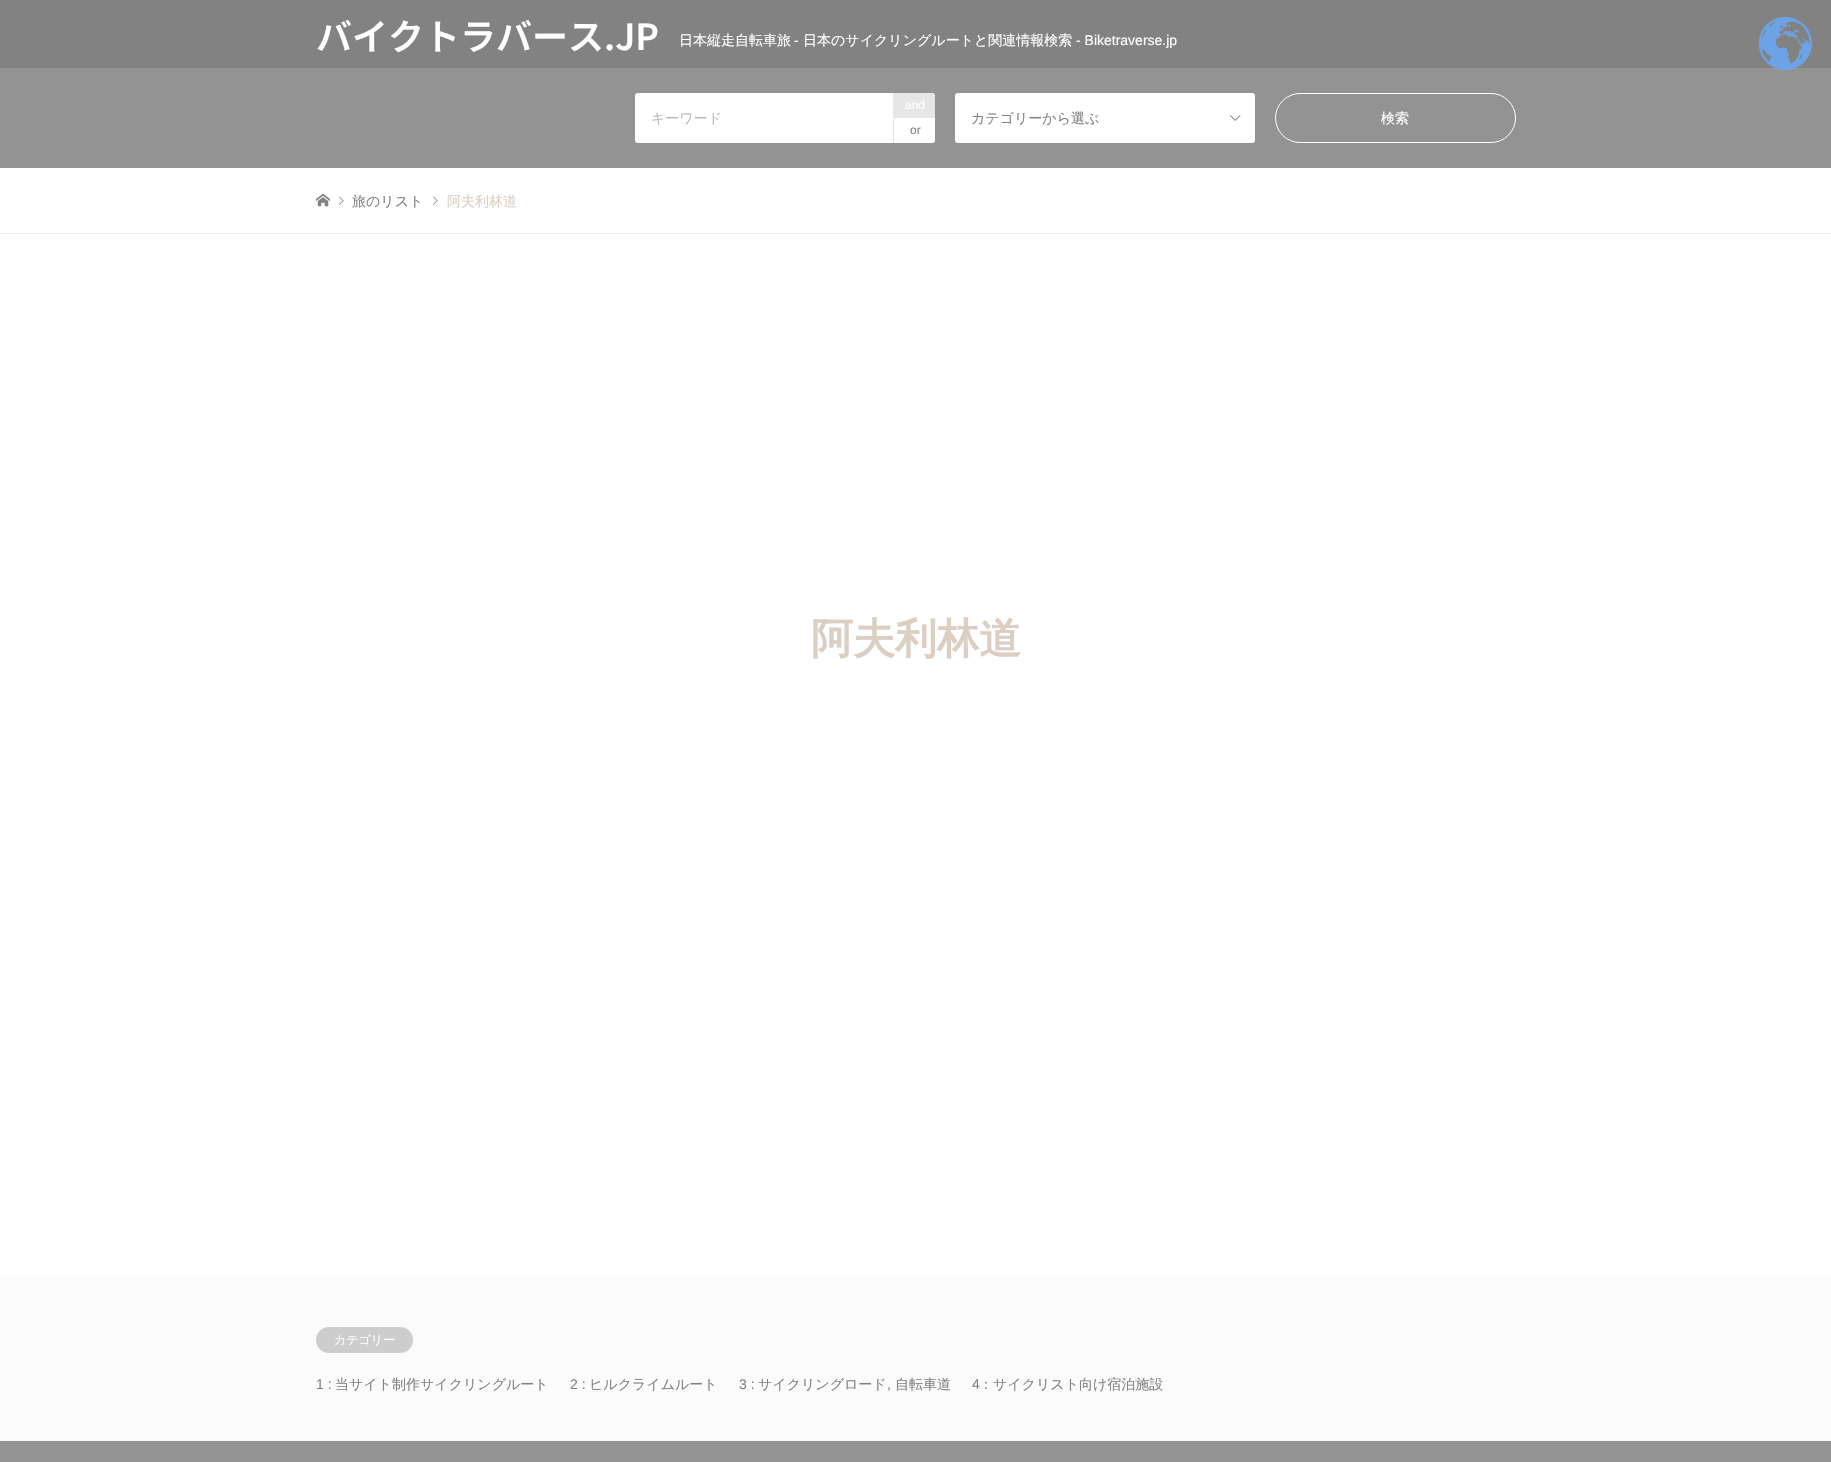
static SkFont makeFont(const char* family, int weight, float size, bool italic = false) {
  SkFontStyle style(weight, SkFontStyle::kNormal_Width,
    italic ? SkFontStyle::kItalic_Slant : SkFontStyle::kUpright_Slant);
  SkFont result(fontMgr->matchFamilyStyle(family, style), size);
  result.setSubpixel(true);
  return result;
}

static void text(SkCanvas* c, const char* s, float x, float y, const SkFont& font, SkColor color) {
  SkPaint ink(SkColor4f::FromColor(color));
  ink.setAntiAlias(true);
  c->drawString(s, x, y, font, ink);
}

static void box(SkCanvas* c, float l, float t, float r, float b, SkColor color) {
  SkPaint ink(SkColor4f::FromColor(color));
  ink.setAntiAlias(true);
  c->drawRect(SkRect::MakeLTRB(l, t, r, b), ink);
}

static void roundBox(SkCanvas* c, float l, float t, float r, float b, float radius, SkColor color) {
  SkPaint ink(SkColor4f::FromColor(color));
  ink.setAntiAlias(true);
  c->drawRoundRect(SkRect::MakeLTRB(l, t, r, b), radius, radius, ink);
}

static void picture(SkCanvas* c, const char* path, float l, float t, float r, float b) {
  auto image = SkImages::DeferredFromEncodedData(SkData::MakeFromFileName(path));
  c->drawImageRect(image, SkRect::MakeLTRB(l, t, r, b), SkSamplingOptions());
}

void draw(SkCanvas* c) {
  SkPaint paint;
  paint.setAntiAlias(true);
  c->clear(0xffffffff);
  box(c, 0, 0, 1831, 68, 0xff828282);
  SkFont face1 = makeFont("Noto Sans JP", 600, 36);
  text(c, "バイクトラバース.JP", 316, 50, face1, 0xffffffff);
  SkFont face2 = makeFont("WenQuanYi Zen Hei", 500, 14);
  text(c, "日本縦走自転車旅", 679, 45, face2, 0xffffffff);
  SkFont face3 = makeFont("Liberation Sans", 400, 14);
  text(c, "-", 794, 45, face3, 0xffffffff);
  text(c, "日本のサイクリングルートと関連情報検索", 803, 45, face2, 0xffffffff);
  text(c, "- Biketraverse.jp", 1076, 45, face3, 0xffffffff);
  box(c, 0, 68, 1831, 168, 0xff939393);
  roundBox(c, 635, 93, 935, 143, 3, 0xffffffff);
  text(c, "キーワード", 651, 123, face2, 0xffbbbbbb);
  paint.setColor(0xffe6e6e6);
  c->drawPath(SkPathBuilder().moveTo(893, 93).lineTo(932, 93).cubicTo(933.5f, 93, 935, 94.5f, 935, 96).lineTo(935, 118).lineTo(893, 118).close().detach(), paint);
  SkFont face4 = makeFont("Liberation Sans", 400, 12);
  text(c, "and", 905, 109, face4, 0xffffffff);
  paint.setColor(0xffffffff);
  c->drawPath(SkPathBuilder().moveTo(893, 118).lineTo(935, 118).lineTo(935, 140).cubicTo(935, 141.5f, 933.5f, 143, 932, 143).lineTo(893, 143).close().detach(), paint);
  box(c, 893, 118, 894, 143, 0xffe6e6e6);
  text(c, "or", 910, 134, face4, 0xff828282);
  roundBox(c, 955, 93, 1255, 143, 3, 0xffffffff);
  text(c, "カテゴリーから選ぶ", 971, 123, face2, 0xff828282);
  picture(c, "img_01.png", 1229, 115, 1241, 121);
  paint.setStyle(SkPaint::kStroke_Style);
  paint.setStrokeWidth(1);
  c->drawRoundRect(SkRect::MakeLTRB(1275.5f, 93.5f, 1515.5f, 142.5f), 24.5f, 24.5f, paint);
  text(c, "検索", 1381, 123, face2, 0xffffffff);
  picture(c, "img_02.png", 1758, 16, 1812, 71);
  box(c, 0, 233, 1831, 234, 0xffeeeeee);
  picture(c, "img_03.png", 316, 193, 330, 207);
  picture(c, "img_04.png", 339, 196, 344, 205);
  text(c, "旅のリスト", 352, 206, face2, 0xff828282);
  picture(c, "img_04.png", 433, 196, 438, 205);
  text(c, "阿夫利林道", 447, 206, face2, 0xffdbcfc3);
  SkFont face5 = makeFont("WenQuanYi Zen Hei", 700, 42);
  text(c, "阿夫利林道", 811, 653, face5, 0xffdbcfc3);
  box(c, 0, 1277, 1831, 1441, 0xfffbfbfb);
  roundBox(c, 316, 1327, 413, 1353, 13, 0xffcdcdcd);
  SkFont face6 = makeFont("WenQuanYi Zen Hei", 500, 12);
  text(c, "カテゴリー", 334, 1344, face6, 0xffffffff);
  text(c, "1 :", 316, 1389, face3, 0xff828282);
  text(c, "当サイト制作サイクリングルート", 335, 1389, face2, 0xff828282);
  text(c, "2 :", 570, 1389, face3, 0xff828282);
  text(c, "ヒルクライムルート", 589, 1389, face2, 0xff828282);
  text(c, "3 :", 739, 1389, face3, 0xff828282);
  text(c, "サイクリングロード", 758, 1389, face2, 0xff828282);
  text(c, ",", 887, 1389, face3, 0xff828282);
  text(c, "自転車道", 895, 1389, face2, 0xff828282);
  text(c, "4", 972, 1389, face3, 0xff828282);
  text(c, "：サイクリスト向け宿泊施設", 979, 1389, face2, 0xff828282);
  box(c, 0, 1441, 1831, 1462, 0xff939393);
}
